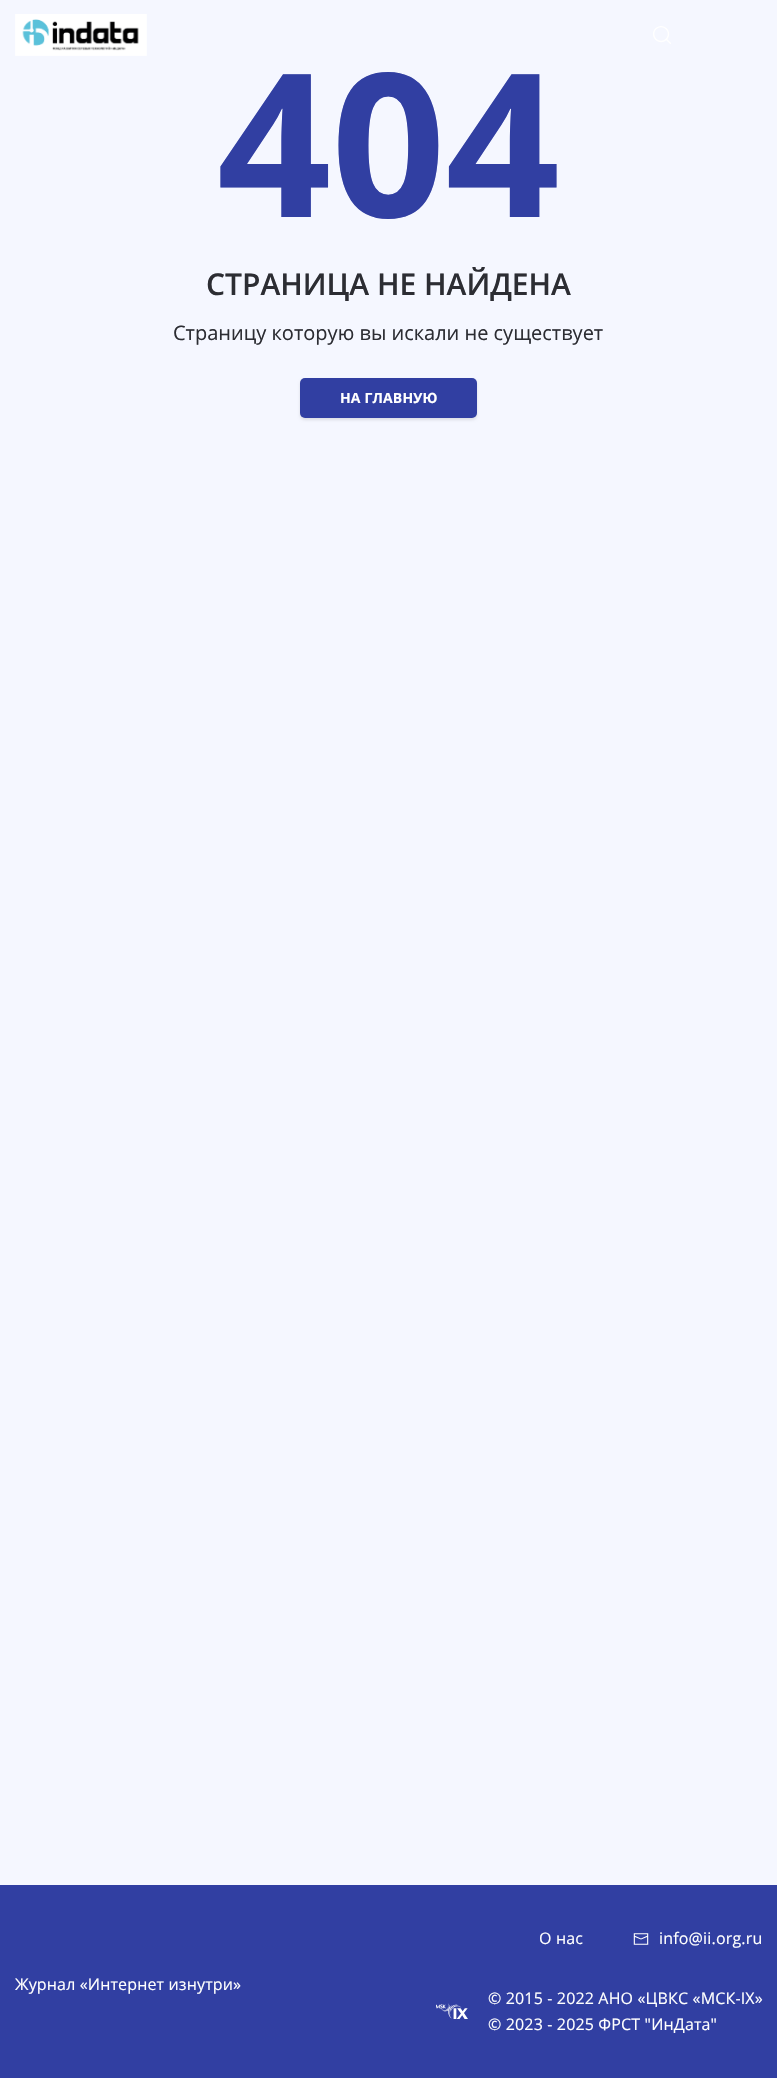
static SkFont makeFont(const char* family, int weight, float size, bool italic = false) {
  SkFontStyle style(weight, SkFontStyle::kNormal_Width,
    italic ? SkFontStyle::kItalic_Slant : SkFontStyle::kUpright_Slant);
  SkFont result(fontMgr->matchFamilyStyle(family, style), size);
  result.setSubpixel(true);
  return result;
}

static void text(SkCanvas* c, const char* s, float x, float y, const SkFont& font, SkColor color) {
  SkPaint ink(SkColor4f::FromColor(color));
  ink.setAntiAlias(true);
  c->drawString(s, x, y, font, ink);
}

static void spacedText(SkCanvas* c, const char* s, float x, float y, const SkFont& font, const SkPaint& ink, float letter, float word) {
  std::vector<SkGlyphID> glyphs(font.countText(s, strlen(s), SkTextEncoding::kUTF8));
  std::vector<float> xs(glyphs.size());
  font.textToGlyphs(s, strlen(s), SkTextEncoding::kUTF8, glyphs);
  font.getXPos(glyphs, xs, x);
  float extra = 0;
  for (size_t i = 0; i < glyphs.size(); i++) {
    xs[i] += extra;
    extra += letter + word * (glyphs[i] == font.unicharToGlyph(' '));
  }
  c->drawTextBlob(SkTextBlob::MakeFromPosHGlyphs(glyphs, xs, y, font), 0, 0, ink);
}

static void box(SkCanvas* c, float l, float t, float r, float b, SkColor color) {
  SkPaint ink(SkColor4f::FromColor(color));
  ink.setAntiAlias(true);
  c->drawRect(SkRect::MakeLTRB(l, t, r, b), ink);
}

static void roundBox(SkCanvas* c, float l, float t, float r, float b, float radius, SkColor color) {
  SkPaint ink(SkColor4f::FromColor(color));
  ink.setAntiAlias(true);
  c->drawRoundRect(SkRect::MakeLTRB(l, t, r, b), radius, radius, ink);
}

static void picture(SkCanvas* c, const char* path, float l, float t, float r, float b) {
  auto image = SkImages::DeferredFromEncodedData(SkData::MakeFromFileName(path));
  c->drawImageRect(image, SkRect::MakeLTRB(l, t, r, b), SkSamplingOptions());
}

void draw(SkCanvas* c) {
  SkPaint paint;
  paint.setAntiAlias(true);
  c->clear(0xfff5f7ff);
  picture(c, "img_01.png", 15, 14, 147, 56);
  picture(c, "img_02.png", 653, 26, 671, 44);
  SkFont face1 = makeFont("Open Sans", 700, 200);
  paint.setColor(0xff313fa2);
  spacedText(c, "404", 217, 217, face1, paint, 0.15f, 0);
  SkFont face2 = makeFont("Open Sans", 600, 30);
  text(c, "СТРАНИЦА НЕ НАЙДЕНА", 206, 295, face2, 0xff2c2d33);
  SkFont face3 = makeFont("Open Sans", 400, 20);
  text(c, "Страницу которую вы искали не существует", 173, 340, face3, 0xff2c2d33);
  paint.setColor(0x1a000000);
  paint.setMaskFilter(SkMaskFilter::MakeBlur(kNormal_SkBlurStyle, 1.5f));
  c->drawRoundRect(SkRect::MakeLTRB(300, 380, 477, 420), 5, 5, paint);
  paint.setMaskFilter(nullptr);
  roundBox(c, 300, 378, 477, 418, 5, 0xff313fa2);
  SkFont face4 = makeFont("Open Sans", 700, 14);
  paint.setColor(0xffffffff);
  spacedText(c, "НА ГЛАВНУЮ", 340, 403, face4, paint, 0.15f, 0);
  box(c, 0, 1885, 777, 2078, 0xff313fa2);
  SkFont face5 = makeFont("Open Sans", 400, 16);
  spacedText(c, "О нас", 539, 1944, face5, paint, 0.15f, 0);
  picture(c, "img_03.png", 633, 1933, 649, 1945);
  spacedText(c, "info@ii.org.ru", 659, 1944, face5, paint, 0.15f, 0);
  spacedText(c, "Журнал «Интернет изнутри»", 15, 1990, face5, paint, 0.15f, 0);
  spacedText(c, "© 2015 - 2022 АНО «ЦВКС «МСК-IX»", 488, 2004, face5, paint, 0.15f, 0);
  picture(c, "img_04.png", 436, 2003, 468, 2019);
  spacedText(c, "© 2023 - 2025 ФРСТ \"ИнДата\"", 488, 2030, face5, paint, 0.15f, 0);
}
